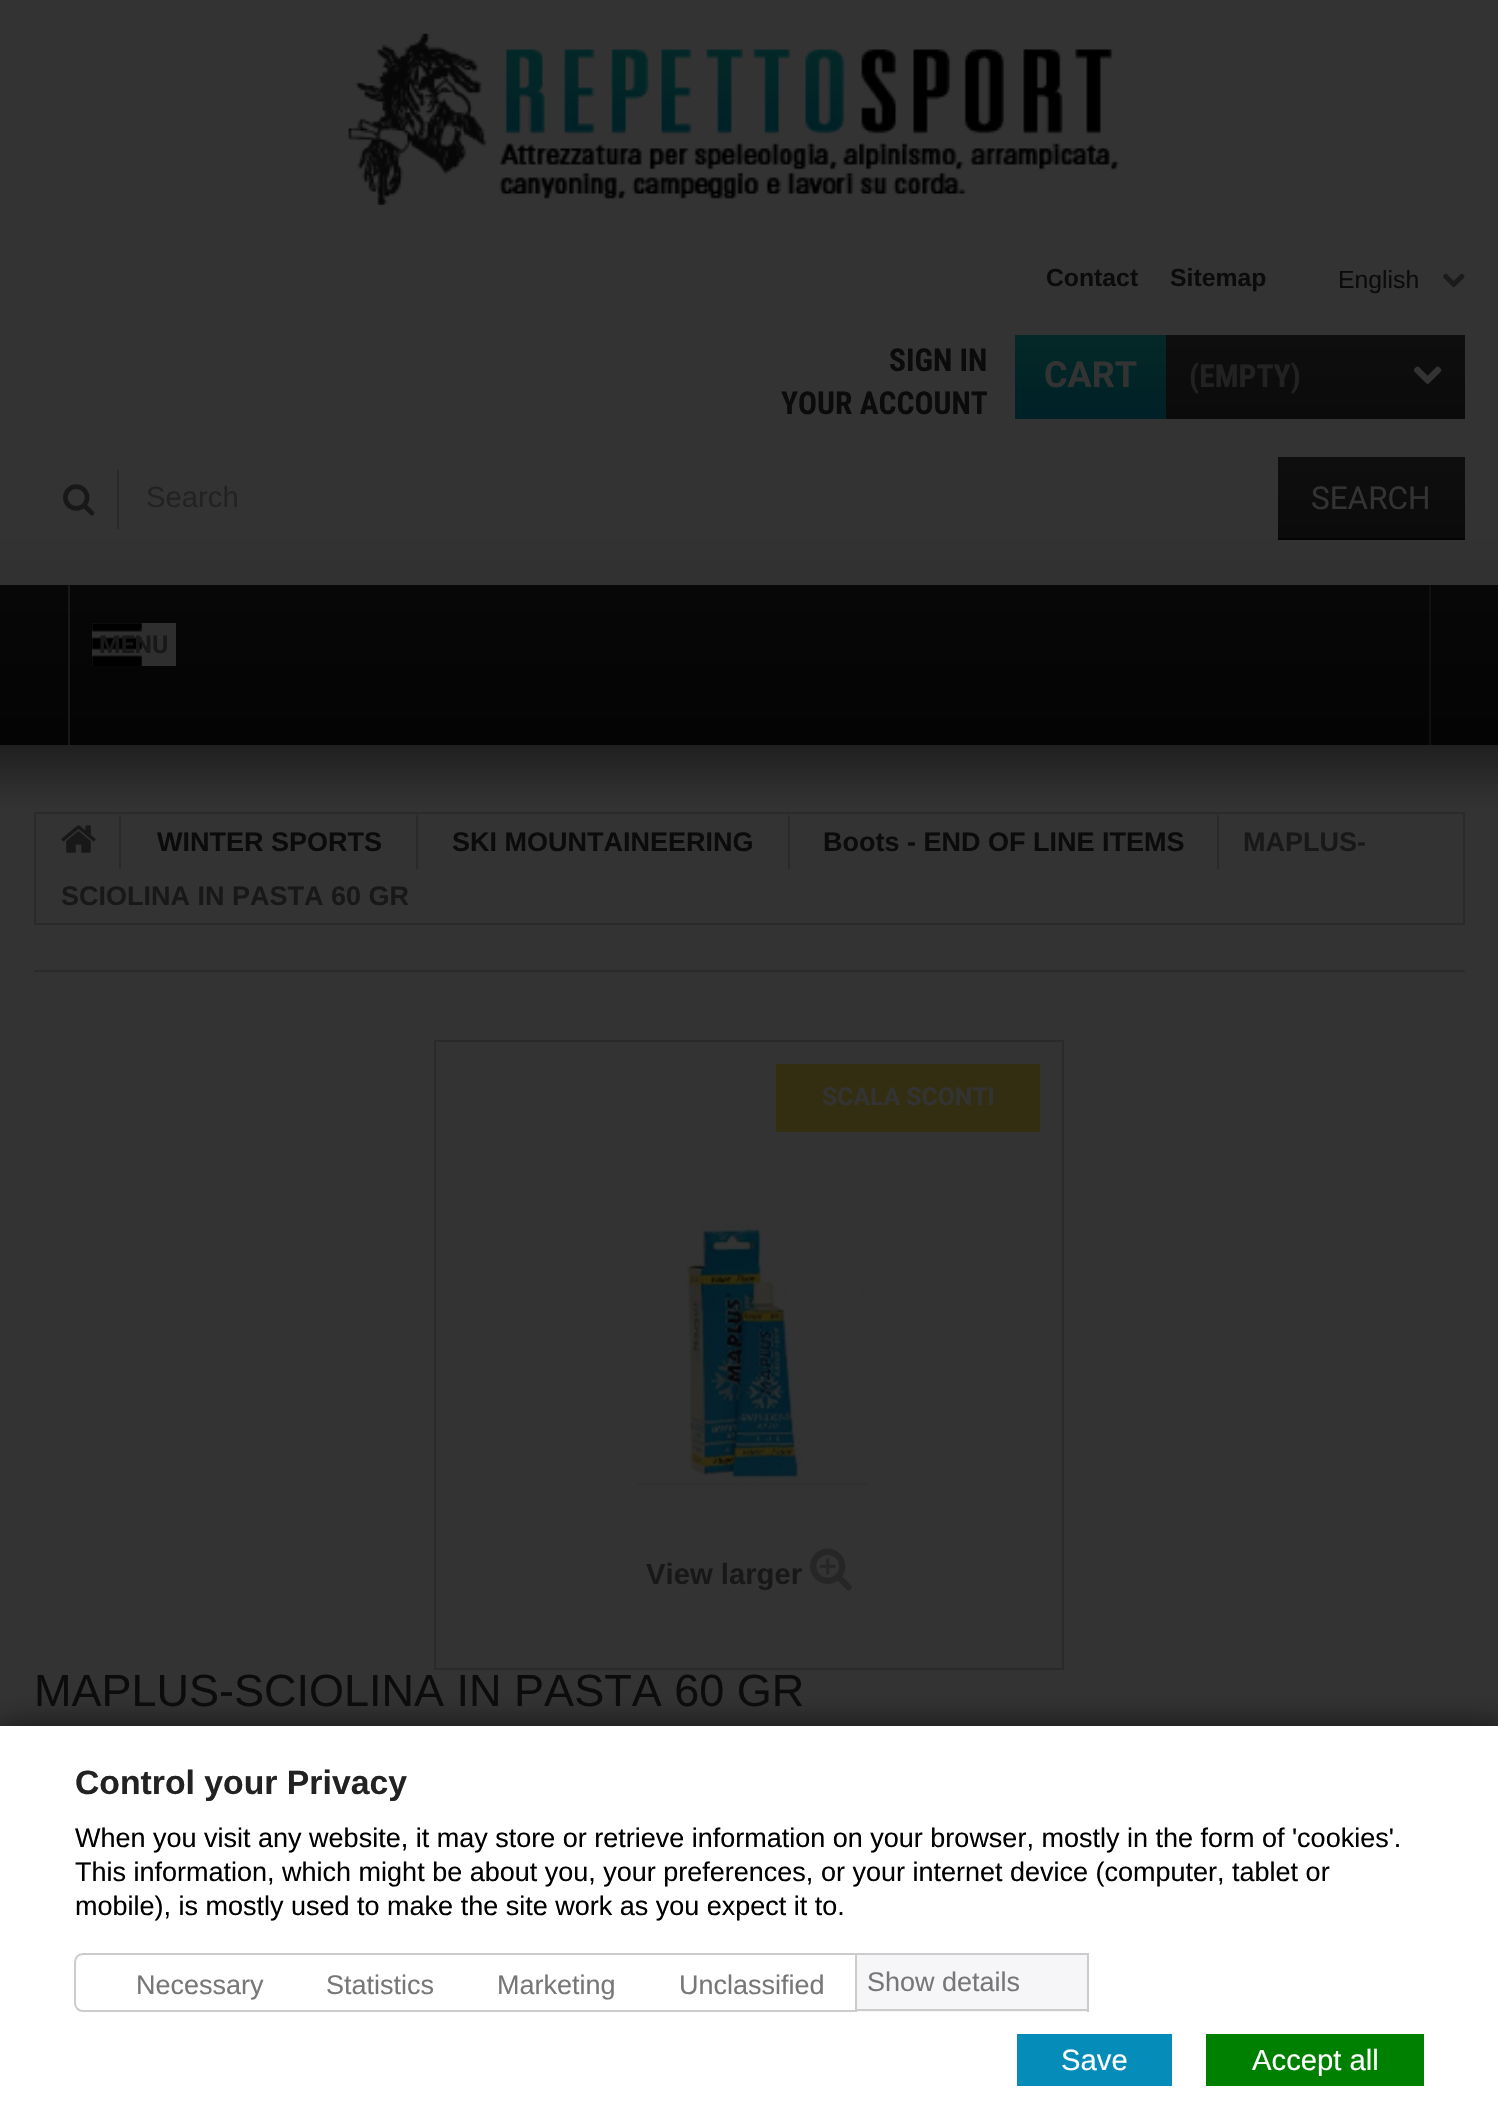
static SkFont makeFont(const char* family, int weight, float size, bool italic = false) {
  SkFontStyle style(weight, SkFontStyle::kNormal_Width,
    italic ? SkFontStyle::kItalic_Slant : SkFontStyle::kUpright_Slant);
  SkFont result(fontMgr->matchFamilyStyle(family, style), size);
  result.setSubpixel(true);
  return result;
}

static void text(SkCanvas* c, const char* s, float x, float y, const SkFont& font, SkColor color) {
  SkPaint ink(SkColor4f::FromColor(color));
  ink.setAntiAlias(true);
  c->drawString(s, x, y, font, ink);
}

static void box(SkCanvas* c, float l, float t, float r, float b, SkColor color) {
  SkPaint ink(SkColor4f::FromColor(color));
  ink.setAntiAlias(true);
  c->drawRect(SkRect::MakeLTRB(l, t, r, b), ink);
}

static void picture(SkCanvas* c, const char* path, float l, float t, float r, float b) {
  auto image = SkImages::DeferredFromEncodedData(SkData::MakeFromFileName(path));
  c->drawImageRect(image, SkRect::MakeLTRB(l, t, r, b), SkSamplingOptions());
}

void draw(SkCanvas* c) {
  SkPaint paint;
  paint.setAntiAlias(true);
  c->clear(0xff333333);
  picture(c, "img_01.png", 0, 539, 1498, 585);
  picture(c, "img_02.png", 348, 33, 1119, 205);
  SkFont face1 = makeFont("Liberation Sans", 700, 24.75f);
  text(c, "Contact", 1046, 286, face1, 0xff0c0b0b);
  text(c, "Sitemap", 1170, 286, face1, 0xff0c0b0b);
  SkFont face2 = makeFont("Liberation Sans", 400, 24.75f);
  text(c, "English", 1338, 288, face2, 0xff0c0b0b);
  picture(c, "img_03.png", 1443, 273, 1465, 288);
  SkFont face3 = makeFont("Roboto Condensed", 700, 31.5f);
  text(c, "SIGN IN", 889, 371, face3, 0xff0c0b0b);
  text(c, "YOUR ACCOUNT", 781, 414, face3, 0xff0c0b0b);
  {
    const SkColor colors[] = {0xff0e0e0e, 0xff0b0b0b};
    const float stops[] = {0, 1};
    const SkPoint ends[] = {{1240, 335}, {1240, 419}};
    paint.setShader(SkGradientShader::MakeLinear(ends, colors, stops, 2, SkTileMode::kClamp));
    paint.setAlpha(255);
  }
  c->drawRect(SkRect::MakeLTRB(1166, 335, 1465, 419), paint);
  {
    const SkColor colors[] = {0xff042827, 0xff002127};
    const float stops[] = {0, 1};
    const SkPoint ends[] = {{1090, 335}, {1090, 419}};
    paint.setShader(SkGradientShader::MakeLinear(ends, colors, stops, 2, SkTileMode::kClamp));
    paint.setAlpha(255);
  }
  c->drawRect(SkRect::MakeLTRB(1015, 335, 1166, 419), paint);
  SkFont face4 = makeFont("Roboto", 700, 36);
  text(c, "CART", 1044, 387, face4, 0xff333333);
  text(c, "(EMPTY)", 1189, 387, face3, 0xff222222);
  picture(c, "img_04.png", 1414, 366, 1442, 384);
  box(c, 117, 470, 119, 529, 0xff282828);
  picture(c, "img_05.png", 63, 484, 95, 516);
  SkFont face5 = makeFont("Liberation Sans", 400, 29.25f);
  text(c, "Search", 146, 507, face5, 0xff222222);
  {
    const SkColor colors[] = {0xff0e0e0e, 0xff0b0b0b};
    const float stops[] = {0, 1};
    const SkPoint ends[] = {{1371, 457}, {1371, 538}};
    paint.setShader(SkGradientShader::MakeLinear(ends, colors, stops, 2, SkTileMode::kClamp));
    paint.setAlpha(255);
  }
  c->drawRect(SkRect::MakeLTRB(1278, 457, 1465, 538), paint);
  box(c, 1278, 538, 1465, 540, 0xff040404);
  SkFont face6 = makeFont("Roboto", 400, 31.5f);
  text(c, "SEARCH", 1311, 509, face6, 0xff333333);
  {
    const SkColor colors[] = {0xff070707, 0xff040404};
    const float stops[] = {0, 1};
    const SkPoint ends[] = {{749, 585}, {749, 745}};
    paint.setShader(SkGradientShader::MakeLinear(ends, colors, stops, 2, SkTileMode::kClamp));
    paint.setAlpha(255);
  }
  c->drawRect(SkRect::MakeLTRB(0, 585, 1498, 745), paint);
  box(c, 68, 585, 70, 745, 0xff181818);
  box(c, 1429, 585, 1431, 745, 0xff101010);
  box(c, 92, 623, 176, 666, 0xff2e2e2e);
  picture(c, "img_06.png", 92, 623, 142, 666);
  SkFont face7 = makeFont("Roboto", 700, 24.75f);
  text(c, "MENU", 99, 653, face7, 0xff181818);
  picture(c, "img_07.png", 0, 745, 1498, 809);
  paint.setStyle(SkPaint::kStroke_Style);
  paint.setStrokeWidth(2);
  paint.setShader(nullptr);
  paint.setColor(0xff2a2a2a);
  c->drawRect(SkRect::MakeLTRB(35, 813, 1464, 924), paint);
  box(c, 119, 815, 121, 869, 0xff2a2a2a);
  picture(c, "img_08.png", 61, 825, 96, 853);
  box(c, 416, 815, 418, 869, 0xff2a2a2a);
  SkFont face8 = makeFont("Liberation Sans", 700, 27);
  text(c, "WINTER SPORTS", 157, 851, face8, 0xff0c0b0b);
  box(c, 788, 815, 790, 869, 0xff2a2a2a);
  text(c, "SKI MOUNTAINEERING", 452, 851, face8, 0xff0c0b0b);
  box(c, 1217, 815, 1219, 869, 0xff2a2a2a);
  text(c, "Boots - END OF LINE ITEMS", 823, 851, face8, 0xff0c0b0b);
  text(c, "MAPLUS-", 1243, 851, face8, 0xff181818);
  text(c, "SCIOLINA IN PASTA 60 GR", 61, 905, face8, 0xff181818);
  box(c, 34, 970, 1465, 972, 0xff2a2a2a);
  c->drawRect(SkRect::MakeLTRB(435, 1041, 1063, 1669), paint);
  box(c, 776, 1064, 1040, 1132, 0xff332e12);
  text(c, "SCALA SCONTI", 822, 1105, face7, 0xff333333);
  picture(c, "img_09.png", 637, 1222, 868, 1486);
  SkFont face9 = makeFont("Liberation Sans", 700, 29.25f);
  text(c, "View larger", 646, 1584, face9, 0xff181818);
  picture(c, "img_10.png", 810, 1548, 852, 1591);
  SkFont face10 = makeFont("Liberation Sans", 400, 45);
  text(c, "MAPLUS-SCIOLINA IN PASTA 60 GR", 34, 1706, face10, 0xff0c0b0b);
  paint.setStyle(SkPaint::kFill_Style);
  paint.setColor(0xff121212);
  paint.setMaskFilter(SkMaskFilter::MakeBlur(kNormal_SkBlurStyle, 16));
  c->drawRect(SkRect::MakeLTRB(0, 1726, 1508, 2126), paint);
  paint.setMaskFilter(nullptr);
  box(c, 0, 1726, 1498, 2116, 0xffffffff);
  SkFont face11 = makeFont("Liberation Sans", 700, 33.75f);
  text(c, "Control your Privacy", 75, 1794, face11, 0xff222222);
  SkFont face12 = makeFont("Liberation Sans", 400, 27);
  text(c, "When you visit any website, it may store or retrieve information on your browser, mostly in the form of 'cookies'.", 75, 1847, face12, 0xff000000);
  text(c, "This information, which might be about you, your preferences, or your internet device (computer, tablet or", 75, 1881, face12, 0xff000000);
  text(c, "mobile), is mostly used to make the site work as you expect it to.", 75, 1915, face12, 0xff000000);
  paint.setStyle(SkPaint::kStroke_Style);
  paint.setColor(0xffcccccc);
  c->drawPath(SkPathBuilder().moveTo(83, 1954).lineTo(856, 1954).lineTo(856, 2011).lineTo(83, 2011).cubicTo(78.5f, 2011, 75, 2007.5f, 75, 2003).lineTo(75, 1962).cubicTo(75, 1957.5f, 78.5f, 1954, 83, 1954).close().detach(), paint);
  text(c, "Necessary", 136, 1994, face12, 0xff777777);
  text(c, "Statistics", 326, 1994, face12, 0xff777777);
  text(c, "Marketing", 497, 1994, face12, 0xff777777);
  text(c, "Unclassified", 679, 1994, face12, 0xff777777);
  box(c, 857, 1955, 1087, 2012, 0xfff6f6f9);
  box(c, 857, 1953, 1089, 1955, 0xffcccccc);
  box(c, 1087, 1953, 1089, 2012, 0xffcccccc);
  box(c, 857, 2009, 1089, 2011, 0xffcccccc);
  text(c, "Show details", 867, 1991, face12, 0xff777777);
  box(c, 1017, 2034, 1172, 2086, 0xff068cb9);
  text(c, "Save", 1061, 2070, face5, 0xffffffff);
  box(c, 1206, 2034, 1424, 2086, 0xff008000);
  text(c, "Accept all", 1252, 2070, face5, 0xffffffff);
}
